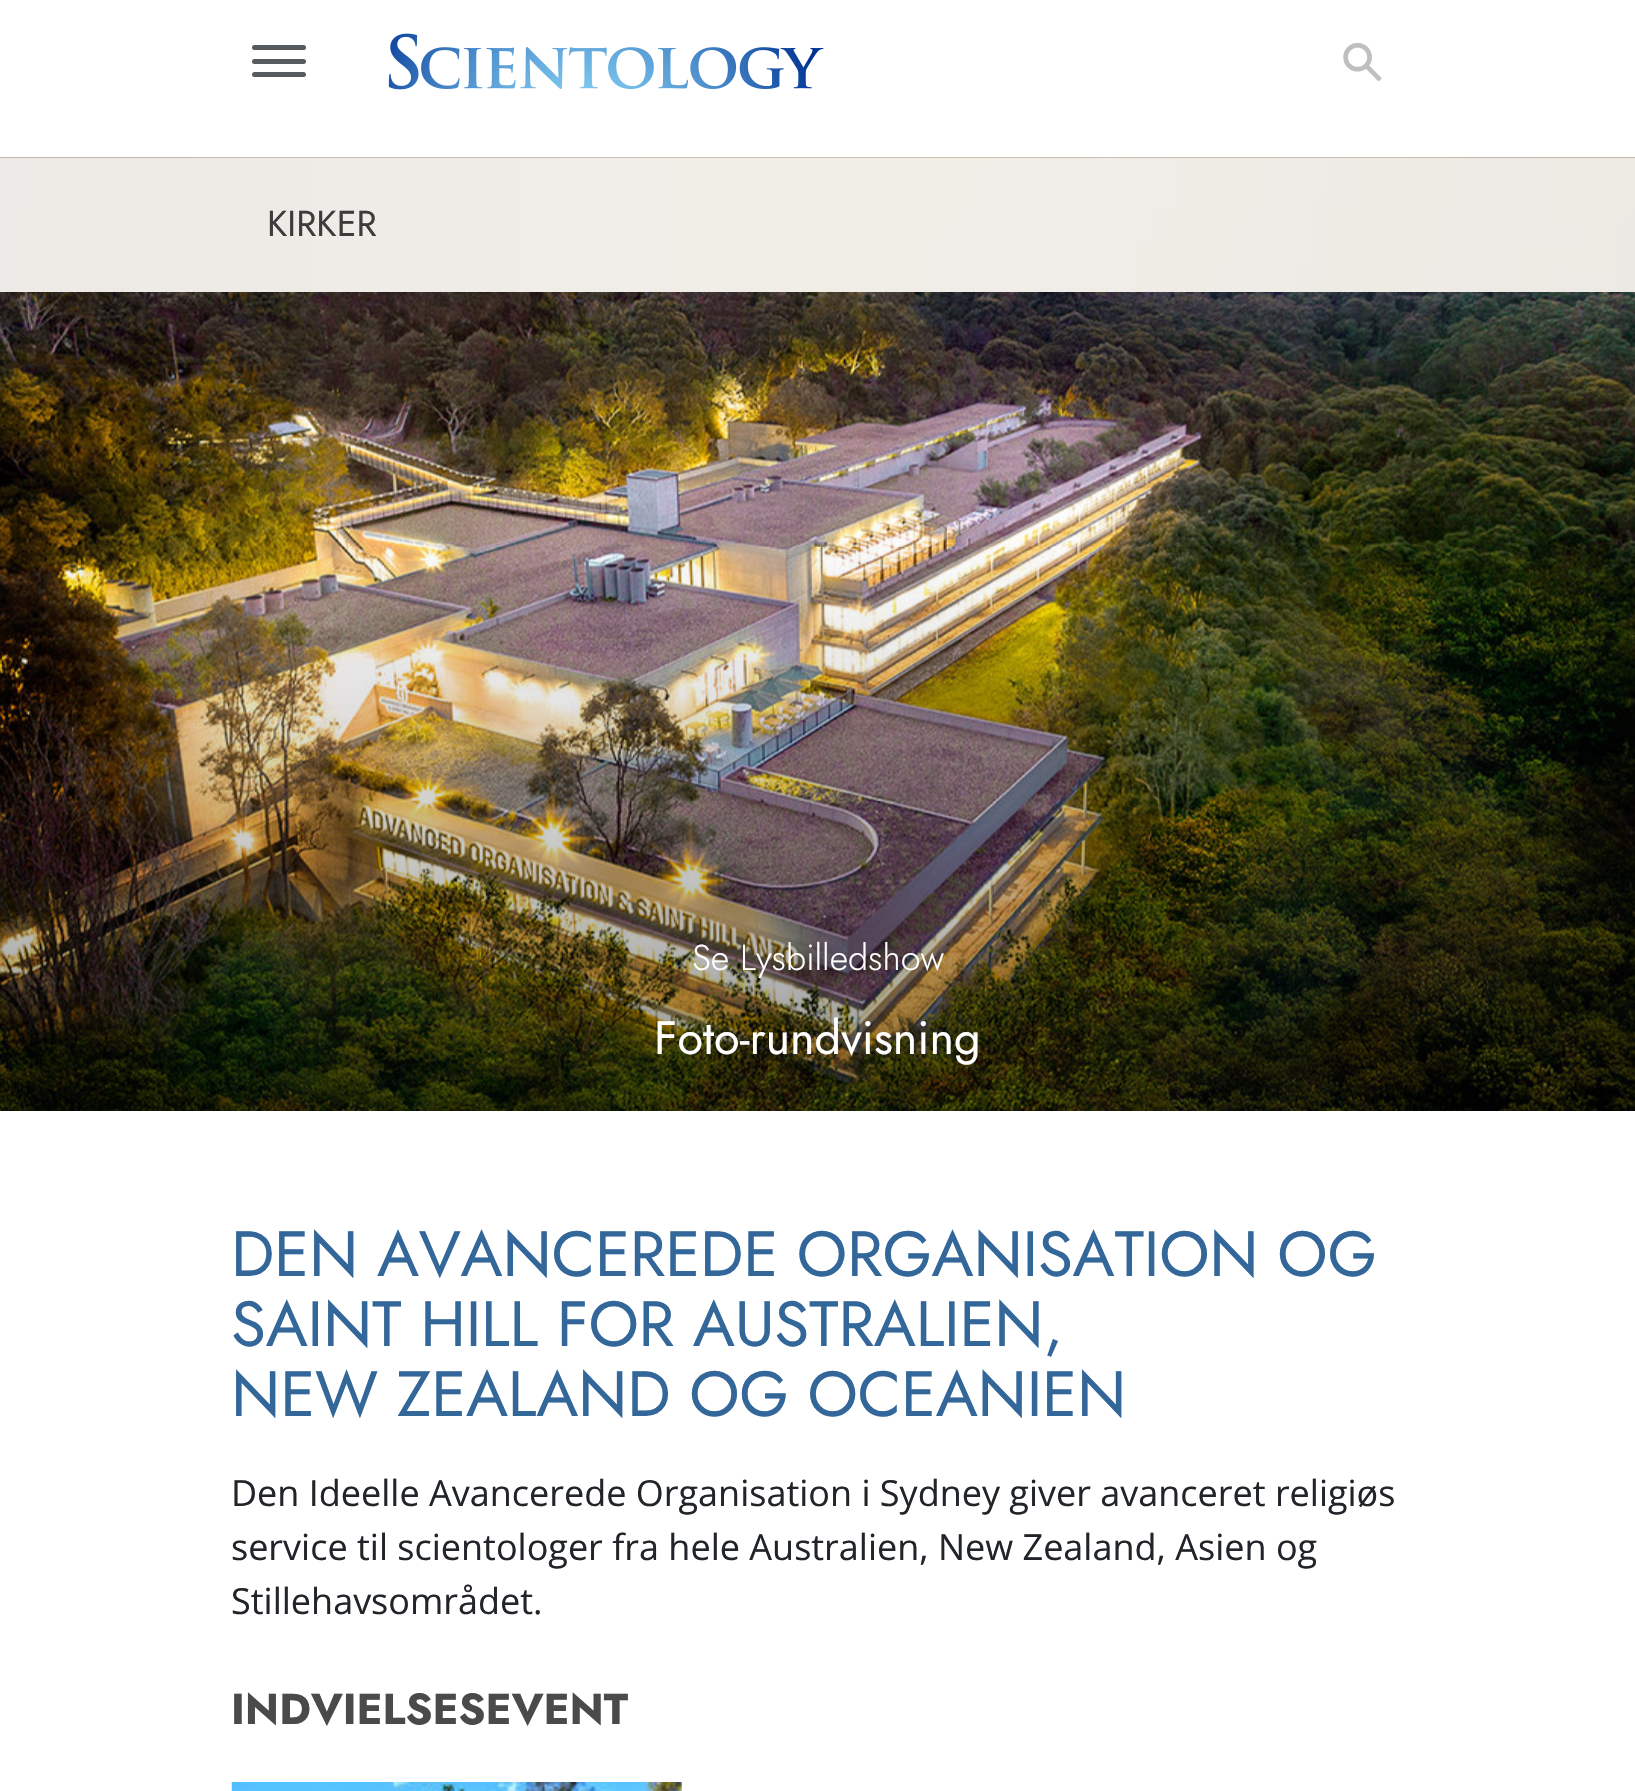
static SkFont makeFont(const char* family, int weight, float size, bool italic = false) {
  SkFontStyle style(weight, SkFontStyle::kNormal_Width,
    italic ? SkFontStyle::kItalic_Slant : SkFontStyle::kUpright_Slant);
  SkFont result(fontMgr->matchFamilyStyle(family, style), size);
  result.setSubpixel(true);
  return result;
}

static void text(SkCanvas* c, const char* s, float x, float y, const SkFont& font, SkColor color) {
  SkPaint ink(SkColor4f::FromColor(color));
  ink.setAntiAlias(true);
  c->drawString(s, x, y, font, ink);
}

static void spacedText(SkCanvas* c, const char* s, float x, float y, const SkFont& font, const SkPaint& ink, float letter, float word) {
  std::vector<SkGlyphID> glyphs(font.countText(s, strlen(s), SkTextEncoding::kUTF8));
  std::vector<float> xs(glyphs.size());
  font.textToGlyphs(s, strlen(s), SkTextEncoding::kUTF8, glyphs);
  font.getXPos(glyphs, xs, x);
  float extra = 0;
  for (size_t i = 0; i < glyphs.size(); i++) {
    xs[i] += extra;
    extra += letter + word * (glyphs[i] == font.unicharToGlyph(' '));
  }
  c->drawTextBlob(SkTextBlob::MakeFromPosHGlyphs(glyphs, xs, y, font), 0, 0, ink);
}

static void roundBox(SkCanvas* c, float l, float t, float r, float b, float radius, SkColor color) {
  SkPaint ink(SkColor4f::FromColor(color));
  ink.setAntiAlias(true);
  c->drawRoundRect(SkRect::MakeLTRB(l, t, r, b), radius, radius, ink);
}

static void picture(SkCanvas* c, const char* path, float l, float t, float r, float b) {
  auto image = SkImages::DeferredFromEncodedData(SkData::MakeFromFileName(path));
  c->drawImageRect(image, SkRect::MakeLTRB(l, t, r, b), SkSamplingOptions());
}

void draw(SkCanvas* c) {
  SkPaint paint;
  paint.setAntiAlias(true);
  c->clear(0xffffffff);
  roundBox(c, 252, 45, 306, 50, 2.5f, 0xff575b5e);
  roundBox(c, 252, 59, 306, 64, 2.5f, 0xff575b5e);
  roundBox(c, 252, 72, 306, 77, 2.5f, 0xff575b5e);
  picture(c, "img_01.png", 388, 33, 824, 90);
  picture(c, "img_02.png", 1343, 42, 1382, 82);
  picture(c, "img_03.png", 0, 157, 1635, 292);
  SkFont face1 = makeFont("Jost", 400, 36);
  text(c, "KIRKER", 267, 236, face1, 0xff3c3c3c);
  picture(c, "img_04.png", 0, 292, 1635, 1111);
  SkFont face2 = makeFont("Jost", 300, 36);
  text(c, "Se Lysbilledshow", 692, 970, face2, 0xffffffff);
  SkFont face3 = makeFont("Jost", 400, 46.75f);
  text(c, "Foto-rundvisning", 654, 1054, face3, 0xffffffff);
  SkFont face4 = makeFont("Jost", 400, 63.75f);
  paint.setColor(0xff336699);
  spacedText(c, "DEN AVANCEREDE ORGANISATION OG", 231, 1276, face4, paint, -0.25f, 0);
  spacedText(c, "SAINT HILL FOR AUSTRALIEN,", 231, 1346, face4, paint, -0.25f, 0);
  spacedText(c, "NEW ZEALAND OG OCEANIEN", 231, 1416, face4, paint, -0.25f, 0);
  SkFont face5 = makeFont("Open Sans", 400, 36);
  text(c, "Den Ideelle Avancerede Organisation i Sydney giver avanceret religiøs", 231, 1506, face5, 0xff212529);
  text(c, "service til scientologer fra hele Australien, New Zealand, Asien og", 231, 1560, face5, 0xff212529);
  text(c, "Stillehavsområdet.", 231, 1614, face5, 0xff212529);
  SkFont face6 = makeFont("Jost", 700, 43.25f);
  text(c, "INDVIELSESEVENT", 231, 1724, face6, 0xff4a4a4a);
  picture(c, "img_05.png", 231, 1782, 682, 1791);
}
